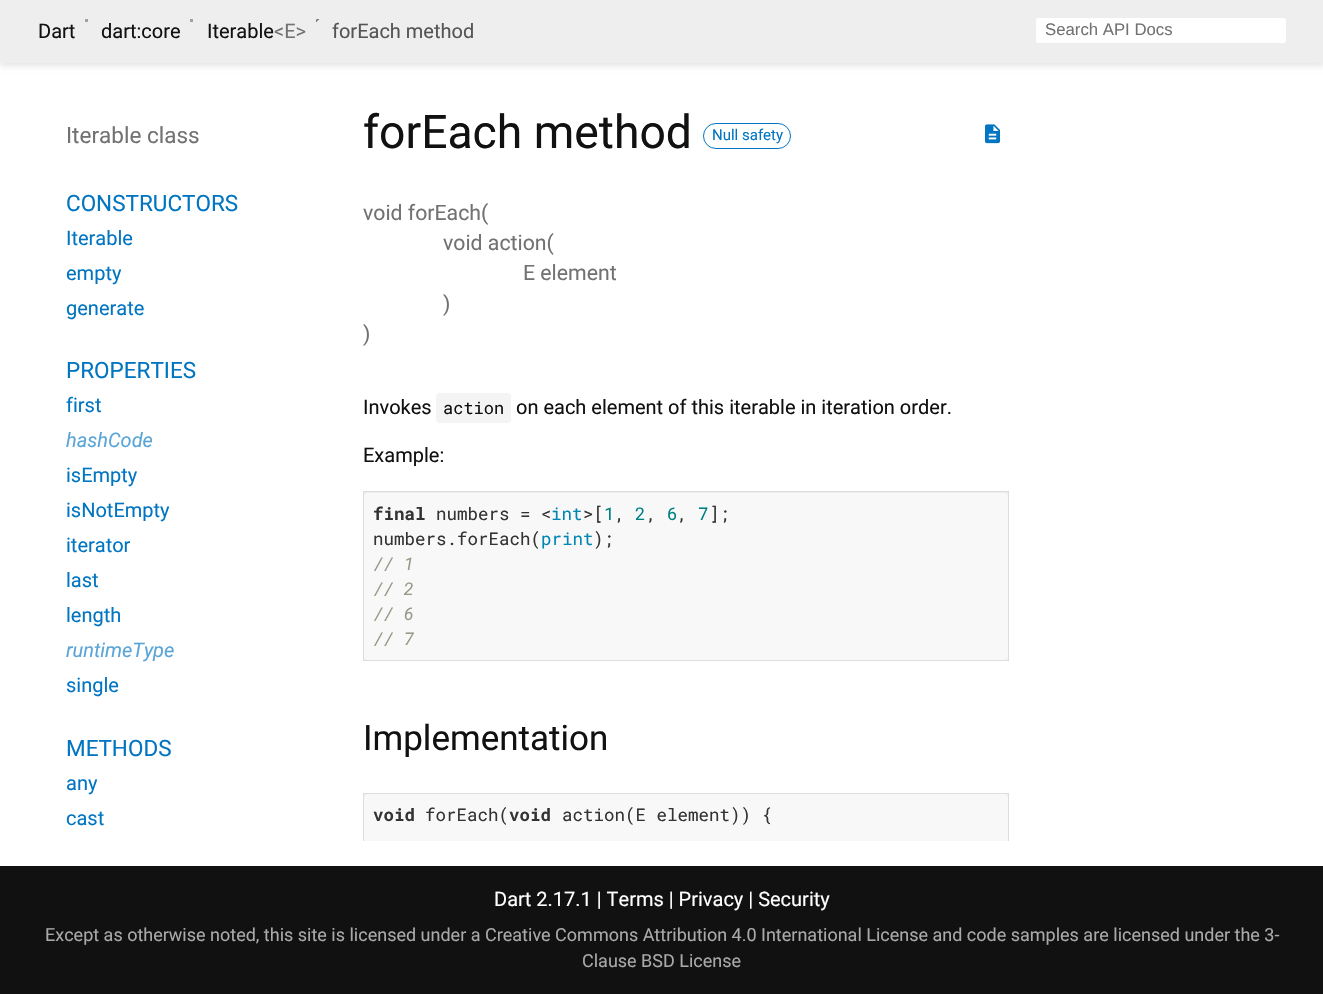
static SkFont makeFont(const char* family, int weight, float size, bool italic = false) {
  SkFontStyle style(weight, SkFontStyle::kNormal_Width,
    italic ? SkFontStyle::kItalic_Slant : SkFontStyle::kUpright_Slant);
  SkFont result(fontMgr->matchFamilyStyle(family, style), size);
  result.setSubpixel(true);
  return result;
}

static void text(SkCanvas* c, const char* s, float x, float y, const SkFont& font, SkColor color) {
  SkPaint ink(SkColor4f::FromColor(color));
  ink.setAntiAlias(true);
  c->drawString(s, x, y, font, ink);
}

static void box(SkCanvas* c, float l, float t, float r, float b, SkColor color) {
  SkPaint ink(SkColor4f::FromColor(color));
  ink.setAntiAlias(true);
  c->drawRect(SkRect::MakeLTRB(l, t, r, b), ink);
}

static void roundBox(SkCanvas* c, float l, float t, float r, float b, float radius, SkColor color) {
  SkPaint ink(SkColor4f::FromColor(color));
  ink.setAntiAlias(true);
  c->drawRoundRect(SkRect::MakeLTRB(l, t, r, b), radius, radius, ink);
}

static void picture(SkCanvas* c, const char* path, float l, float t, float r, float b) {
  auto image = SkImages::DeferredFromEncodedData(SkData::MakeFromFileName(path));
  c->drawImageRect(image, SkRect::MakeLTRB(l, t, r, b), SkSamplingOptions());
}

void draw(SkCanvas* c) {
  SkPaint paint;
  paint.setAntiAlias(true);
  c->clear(0xffffffff);
  paint.setColor(0x1a000000);
  paint.setMaskFilter(SkMaskFilter::MakeBlur(kNormal_SkBlurStyle, 3));
  c->drawRect(SkRect::MakeLTRB(0, 4, 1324, 66), paint);
  paint.setMaskFilter(nullptr);
  box(c, 0, 0, 1323, 63, 0xffeeeeee);
  SkFont face1 = makeFont("Roboto", 400, 20);
  text(c, "Dart", 38, 38, face1, 0xff111111);
  box(c, 85, 19, 88, 22, 0xffa1a1a1);
  text(c, "dart:core", 101, 38, face1, 0xff111111);
  box(c, 190, 19, 193, 22, 0xffa1a1a1);
  text(c, "Iterable", 207, 38, face1, 0xff111111);
  text(c, "<E>", 274, 38, face1, 0xff727272);
  picture(c, "img_01.png", 316, 19, 320, 23);
  text(c, "forEach method", 332, 38, face1, 0xff555555);
  roundBox(c, 1036, 18, 1286, 43, 2.5f, 0xffffffff);
  SkFont face2 = makeFont("Liberation Sans", 400, 16.75f);
  text(c, "Search API Docs", 1045, 35, face2, 0xff727272);
  SkFont face3 = makeFont("Roboto", 400, 22.5f);
  text(c, "Iterable class", 66, 143, face3, 0xff727272);
  text(c, "CONSTRUCTORS", 66, 211, face3, 0xff0175c2);
  text(c, "Iterable", 66, 245, face1, 0xff0175c2);
  text(c, "empty", 66, 280, face1, 0xff0175c2);
  text(c, "generate", 66, 315, face1, 0xff0175c2);
  text(c, "PROPERTIES", 66, 378, face3, 0xff0175c2);
  text(c, "first", 66, 412, face1, 0xff0175c2);
  SkFont face4 = makeFont("Roboto", 400, 20, true);
  text(c, "hashCode", 66, 447, face4, 0xff5aa5d7);
  text(c, "isEmpty", 66, 482, face1, 0xff0175c2);
  text(c, "isNotEmpty", 66, 517, face1, 0xff0175c2);
  text(c, "iterator", 66, 552, face1, 0xff0175c2);
  text(c, "last", 66, 587, face1, 0xff0175c2);
  text(c, "length", 66, 622, face1, 0xff0175c2);
  text(c, "runtimeType", 66, 657, face4, 0xff5aa5d7);
  text(c, "single", 66, 692, face1, 0xff0175c2);
  text(c, "METHODS", 66, 756, face3, 0xff0175c2);
  text(c, "any", 66, 790, face1, 0xff0175c2);
  text(c, "cast", 66, 825, face1, 0xff0175c2);
  SkFont face5 = makeFont("Roboto", 400, 46.25f);
  text(c, "forEach method", 363, 148, face5, 0xff111111);
  paint.setStyle(SkPaint::kStroke_Style);
  paint.setStrokeWidth(1);
  paint.setColor(0xff0175c2);
  c->drawRoundRect(SkRect::MakeLTRB(703.5f, 123.5f, 790.5f, 148.5f), 12.5f, 12.5f, paint);
  SkFont face6 = makeFont("Roboto", 400, 15);
  text(c, "Null safety", 712, 140, face6, 0xff0175c2);
  picture(c, "img_02.png", 985, 124, 1000, 144);
  SkFont face7 = makeFont("Roboto", 400, 21.25f);
  text(c, "void forEach(", 363, 220, face7, 0xff727272);
  text(c, "void action(", 443, 250, face7, 0xff727272);
  text(c, "E element", 523, 280, face7, 0xff727272);
  text(c, ")", 443, 311, face7, 0xff727272);
  text(c, ")", 363, 341, face7, 0xff727272);
  text(c, "Invokes", 363, 414, face1, 0xff111111);
  roundBox(c, 436, 393, 511, 423, 4, 0xfff4f4f4);
  SkFont face8 = makeFont("Roboto Mono", 400, 17);
  text(c, "action", 443, 414, face8, 0xff111111);
  text(c, "on each element of this iterable in iteration order.", 516, 414, face1, 0xff111111);
  text(c, "Example:", 363, 462, face1, 0xff111111);
  paint.setStyle(SkPaint::kFill_Style);
  paint.setColor(0xffeeeeee);
  c->drawRect(SkRect::MakeLTRB(363.5f, 491.5f, 1008.5f, 660.5f), paint);
  paint.setStyle(SkPaint::kStroke_Style);
  paint.setColor(0xffdddddd);
  c->drawRect(SkRect::MakeLTRB(363.5f, 491.5f, 1008.5f, 660.5f), paint);
  roundBox(c, 364, 493, 1008, 660, 4, 0xfff8f8f8);
  SkFont face9 = makeFont("Roboto Mono", 700, 17.5f);
  text(c, "final", 373, 520, face9, 0xff333333);
  SkFont face10 = makeFont("Roboto Mono", 400, 17.5f);
  text(c, "numbers = <", 436, 520, face10, 0xff333333);
  text(c, "int", 551, 520, face10, 0xff0086b3);
  text(c, ">[ ,", 583, 520, face10, 0xff333333);
  text(c, "];", 709, 520, face10, 0xff333333);
  text(c, "1", 604, 520, face10, 0xff008080);
  text(c, "2", 635, 520, face10, 0xff008080);
  text(c, "6", 667, 520, face10, 0xff008080);
  text(c, "7", 698, 520, face10, 0xff008080);
  text(c, ",", 646, 520, face10, 0xff333333);
  text(c, ",", 677, 520, face10, 0xff333333);
  text(c, "numbers.forEach(", 373, 545, face10, 0xff333333);
  text(c, "print", 541, 545, face10, 0xff0086b3);
  text(c, ");", 593, 545, face10, 0xff333333);
  SkFont face11 = makeFont("Roboto Mono", 400, 17.5f, true);
  text(c, "// 1", 373, 570, face11, 0xff999988);
  text(c, "// 2", 373, 595, face11, 0xff999988);
  text(c, "// 6", 373, 620, face11, 0xff999988);
  text(c, "// 7", 373, 645, face11, 0xff999988);
  SkFont face12 = makeFont("Roboto", 400, 35);
  text(c, "Implementation", 363, 750, face12, 0xff111111);
  box(c, 364, 794, 1008, 798, 0xffeeeeee);
  box(c, 0, 866, 1323, 994, 0xff111111);
  c->save();
  c->clipRect(SkRect::MakeLTRB(338, 88, 1034, 841));
  c->drawRect(SkRect::MakeLTRB(363.5f, 793.5f, 1008.5f, 887.5f), paint);
  c->restore();
  paint.setStyle(SkPaint::kFill_Style);
  paint.setColor(0xfff8f8f8);
  c->drawPath(SkPathBuilder().moveTo(368, 794).lineTo(1004, 794).cubicTo(1006, 794, 1008, 796, 1008, 798).lineTo(1008, 841).lineTo(364, 841).lineTo(364, 798).cubicTo(364, 796, 366, 794, 368, 794).close().detach(), paint);
  text(c, "void", 373, 821, face9, 0xff333333);
  text(c, "forEach(", 425, 821, face10, 0xff333333);
  text(c, "void", 509, 821, face9, 0xff333333);
  text(c, "action(E element)) {", 562, 821, face10, 0xff333333);
  text(c, "Dart 2.17.1 | Terms | Privacy | Security", 494, 906, face1, 0xffffffff);
  SkFont face13 = makeFont("Roboto", 400, 18);
  text(c, "Except as otherwise noted, this site is licensed under a Creative Commons Attribution 4.0 International License and code samples are licensed under the 3-", 45, 941, face13, 0xffa9a9a9);
  text(c, "Clause BSD License", 582, 967, face13, 0xffa9a9a9);
}
